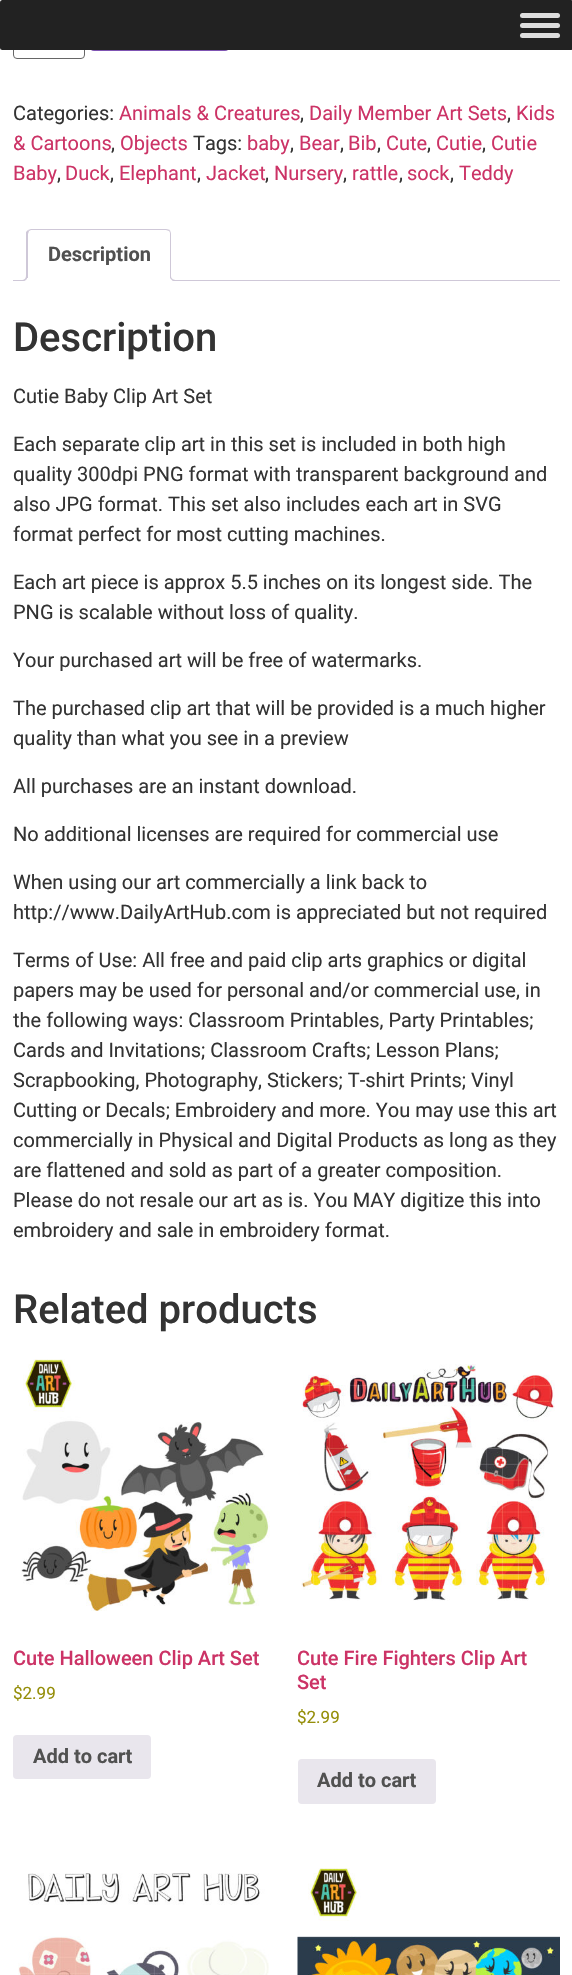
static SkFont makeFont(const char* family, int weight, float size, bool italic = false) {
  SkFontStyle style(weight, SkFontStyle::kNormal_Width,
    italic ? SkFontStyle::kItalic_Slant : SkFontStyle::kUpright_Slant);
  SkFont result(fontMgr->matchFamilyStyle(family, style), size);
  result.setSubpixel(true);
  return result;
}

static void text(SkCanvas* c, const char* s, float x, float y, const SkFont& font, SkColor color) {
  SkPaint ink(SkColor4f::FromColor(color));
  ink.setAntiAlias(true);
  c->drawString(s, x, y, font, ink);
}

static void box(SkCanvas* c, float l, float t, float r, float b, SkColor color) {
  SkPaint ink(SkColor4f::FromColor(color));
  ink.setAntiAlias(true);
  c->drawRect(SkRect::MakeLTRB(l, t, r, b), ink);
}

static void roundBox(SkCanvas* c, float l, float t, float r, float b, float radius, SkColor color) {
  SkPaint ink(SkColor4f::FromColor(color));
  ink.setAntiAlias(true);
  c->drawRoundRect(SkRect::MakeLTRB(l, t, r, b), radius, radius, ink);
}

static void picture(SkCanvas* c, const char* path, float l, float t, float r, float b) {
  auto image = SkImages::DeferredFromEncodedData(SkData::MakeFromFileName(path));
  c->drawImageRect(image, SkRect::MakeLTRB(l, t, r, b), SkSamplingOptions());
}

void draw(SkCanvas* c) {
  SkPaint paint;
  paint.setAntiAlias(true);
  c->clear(0xffffffff);
  paint.setStyle(SkPaint::kStroke_Style);
  paint.setStrokeWidth(1);
  paint.setColor(0xff666666);
  c->drawRoundRect(SkRect::MakeLTRB(13.5f, 6.5f, 84.5f, 58.5f), 3.5f, 3.5f, paint);
  roundBox(c, 90, 6, 229, 51, 4, 0xff7f54b3);
  roundBox(c, 0, 0, 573, 50, 2.5f, 0xff222222);
  roundBox(c, 520, 13, 560, 18, 2.5f, 0xffdddddd);
  roundBox(c, 520, 23, 560, 28, 2.5f, 0xffdddddd);
  roundBox(c, 520, 33, 560, 38, 2.5f, 0xffdddddd);
  SkFont face1 = makeFont("Roboto", 400, 20);
  text(c, "Categories:", 13, 120, face1, 0xff333333);
  text(c, "Animals & Creatures", 119, 120, face1, 0xffcc3366);
  text(c, ",", 300, 120, face1, 0xff333333);
  text(c, "Daily Member Art Sets", 309, 120, face1, 0xffcc3366);
  text(c, ",", 507, 120, face1, 0xff333333);
  text(c, "Kids", 516, 120, face1, 0xffcc3366);
  text(c, "& Cartoons", 13, 150, face1, 0xffcc3366);
  text(c, ",", 111, 150, face1, 0xff333333);
  text(c, "Objects", 120, 150, face1, 0xffcc3366);
  text(c, "Tags:", 193, 150, face1, 0xff333333);
  text(c, "baby", 247, 150, face1, 0xffcc3366);
  text(c, ",", 290, 150, face1, 0xff333333);
  text(c, "Bear", 299, 150, face1, 0xffcc3366);
  text(c, ",", 340, 150, face1, 0xff333333);
  text(c, "Bib", 348, 150, face1, 0xffcc3366);
  text(c, ",", 377, 150, face1, 0xff333333);
  text(c, "Cute", 386, 150, face1, 0xffcc3366);
  text(c, ",", 427, 150, face1, 0xff333333);
  text(c, "Cutie", 436, 150, face1, 0xffcc3366);
  text(c, ",", 482, 150, face1, 0xff333333);
  text(c, "Cutie", 491, 150, face1, 0xffcc3366);
  text(c, "Baby", 13, 180, face1, 0xffcc3366);
  text(c, ",", 57, 180, face1, 0xff333333);
  text(c, "Duck", 65, 180, face1, 0xffcc3366);
  text(c, ",", 110, 180, face1, 0xff333333);
  text(c, "Elephant", 119, 180, face1, 0xffcc3366);
  text(c, ",", 197, 180, face1, 0xff333333);
  text(c, "Jacket", 206, 180, face1, 0xffcc3366);
  text(c, ",", 265, 180, face1, 0xff333333);
  text(c, "Nursery", 274, 180, face1, 0xffcc3366);
  text(c, ",", 343, 180, face1, 0xff333333);
  text(c, "rattle", 352, 180, face1, 0xffcc3366);
  text(c, ",", 399, 180, face1, 0xff333333);
  text(c, "sock", 407, 180, face1, 0xffcc3366);
  text(c, ",", 450, 180, face1, 0xff333333);
  text(c, "Teddy", 459, 180, face1, 0xffcc3366);
  box(c, 13, 280, 560, 281, 0xffcfc8d8);
  paint.setStyle(SkPaint::kFill_Style);
  paint.setColor(0xffffffff);
  c->drawPath(SkPathBuilder().moveTo(31, 229).lineTo(166, 229).cubicTo(169, 229, 171, 231, 171, 234).lineTo(171, 281).lineTo(26, 281).lineTo(26, 234).cubicTo(26, 231, 28, 229, 31, 229).close().detach(), paint);
  paint.setColor(0xffcfc8d8);
  c->drawPath(SkPathBuilder().moveTo(31, 229).lineTo(28, 230).lineTo(29, 231).lineTo(31, 230).lineTo(166, 230).lineTo(169, 231).lineTo(170, 230).cubicTo(169, 230, 168, 229, 166, 229).close().detach(), paint);
  c->drawPath(SkPathBuilder().moveTo(171, 281).lineTo(171, 234).cubicTo(171, 232, 170, 231, 170, 230).lineTo(169, 231).cubicTo(170, 232, 170, 233, 170, 234).lineTo(170, 280).close().detach(), paint);
  paint.setColor(0xffffffff);
  c->drawPath(SkPathBuilder().moveTo(171, 281).lineTo(170, 280).lineTo(28, 280).lineTo(26, 281).close().detach(), paint);
  paint.setColor(0xffcfc8d8);
  c->drawPath(SkPathBuilder().moveTo(26, 232).lineTo(28, 230).lineTo(29, 231).lineTo(28, 234).lineTo(28, 280).lineTo(26, 281).close().detach(), paint);
  SkFont face2 = makeFont("Roboto", 700, 20);
  text(c, "Description", 48, 261, face2, 0xff515151);
  c->save();
  c->clipRect(SkRect::MakeLTRB(13, 229, 560, 281));
  paint.setColor(0xffffffff);
  c->drawPath(SkPathBuilder().moveTo(24, 281).lineTo(24, 284).cubicTo(28, 284, 30, 282, 30, 278).lineTo(27, 278).cubicTo(26.5f, 279.5f, 25.5f, 280.5f, 24, 281).close().detach(), paint);
  c->restore();
  paint.setColor(0xffcfc8d8);
  c->drawPath(SkPathBuilder(SkPathFillType::kEvenOdd).moveTo(21, 275).lineTo(27.5f, 275).cubicTo(27.5f, 279.5f, 25.5f, 281, 21, 281).close().moveTo(21, 275).lineTo(26, 275).cubicTo(26, 278.5f, 25, 280, 21, 280).close().detach(), paint);
  c->save();
  c->clipRect(SkRect::MakeLTRB(13, 229, 560, 281));
  paint.setColor(0xffffffff);
  c->drawPath(SkPathBuilder().moveTo(168, 278).cubicTo(168, 282, 170, 284, 174, 284).lineTo(174, 281).cubicTo(172.5f, 281, 171, 279.5f, 170.5f, 278).close().detach(), paint);
  c->restore();
  paint.setColor(0xffcfc8d8);
  c->drawPath(SkPathBuilder(SkPathFillType::kEvenOdd).moveTo(170, 275).lineTo(176, 275).lineTo(176, 281).cubicTo(173, 281, 170, 280, 170, 276).close().moveTo(171, 275).lineTo(176, 275).lineTo(176, 280).cubicTo(174, 280, 171, 279, 171, 276).close().detach(), paint);
  SkFont face3 = makeFont("Roboto", 500, 40);
  text(c, "Description", 13, 351, face3, 0xff333333);
  text(c, "Cutie Baby Clip Art Set", 13, 403, face1, 0xff333333);
  text(c, "Each separate clip art in this set is included in both high", 13, 451, face1, 0xff333333);
  text(c, "quality 300dpi PNG format with transparent background and", 13, 481, face1, 0xff333333);
  text(c, "also JPG format. This set also includes each art in SVG", 13, 511, face1, 0xff333333);
  text(c, "format perfect for most cutting machines.", 13, 541, face1, 0xff333333);
  text(c, "Each art piece is approx 5.5 inches on its longest side. The", 13, 589, face1, 0xff333333);
  text(c, "PNG is scalable without loss of quality.", 13, 619, face1, 0xff333333);
  text(c, "Your purchased art will be free of watermarks.", 13, 667, face1, 0xff333333);
  text(c, "The purchased clip art that will be provided is a much higher", 13, 715, face1, 0xff333333);
  text(c, "quality than what you see in a preview", 13, 745, face1, 0xff333333);
  text(c, "All purchases are an instant download.", 13, 793, face1, 0xff333333);
  text(c, "No additional licenses are required for commercial use", 13, 841, face1, 0xff333333);
  text(c, "When using our art commercially a link back to", 13, 889, face1, 0xff333333);
  text(c, "http://www.DailyArtHub.com is appreciated but not required", 13, 919, face1, 0xff333333);
  text(c, "Terms of Use: All free and paid clip arts graphics or digital", 13, 967, face1, 0xff333333);
  text(c, "papers may be used for personal and/or commercial use, in", 13, 997, face1, 0xff333333);
  text(c, "the following ways: Classroom Printables, Party Printables;", 13, 1027, face1, 0xff333333);
  text(c, "Cards and Invitations; Classroom Crafts; Lesson Plans;", 13, 1057, face1, 0xff333333);
  text(c, "Scrapbooking, Photography, Stickers; T-shirt Prints; Vinyl", 13, 1087, face1, 0xff333333);
  text(c, "Cutting or Decals; Embroidery and more. You may use this art", 13, 1117, face1, 0xff333333);
  text(c, "commercially in Physical and Digital Products as long as they", 13, 1147, face1, 0xff333333);
  text(c, "are flattened and sold as part of a greater composition.", 13, 1177, face1, 0xff333333);
  text(c, "Please do not resale our art as is. You MAY digitize this into", 13, 1207, face1, 0xff333333);
  text(c, "embroidery and sale in embroidery format.", 13, 1237, face1, 0xff333333);
  text(c, "Related products", 13, 1323, face3, 0xff333333);
  picture(c, "img_01.png", 21, 1359, 270, 1611);
  SkFont face4 = makeFont("Roboto", 500, 20);
  text(c, "Cute Halloween Clip Art Set", 13, 1665, face4, 0xffcc3366);
  SkFont face5 = makeFont("Roboto", 400, 17);
  text(c, "$2.99", 13, 1699, face5, 0xff958e09);
  roundBox(c, 13, 1735, 151, 1779, 4, 0xffe9e6ed);
  text(c, "Add to cart", 33, 1763, face2, 0xff515151);
  picture(c, "img_02.png", 301, 1364, 555, 1601);
  text(c, "Cute Fire Fighters Clip Art", 297, 1665, face4, 0xffcc3366);
  text(c, "Set", 297, 1689, face4, 0xffcc3366);
  text(c, "$2.99", 297, 1723, face5, 0xff958e09);
  roundBox(c, 298, 1759, 436, 1804, 4, 0xffe9e6ed);
  text(c, "Add to cart", 317, 1787, face2, 0xff515151);
  picture(c, "img_03.png", 18, 1873, 269, 1975);
  picture(c, "img_04.png", 297, 1868, 560, 1975);
}
